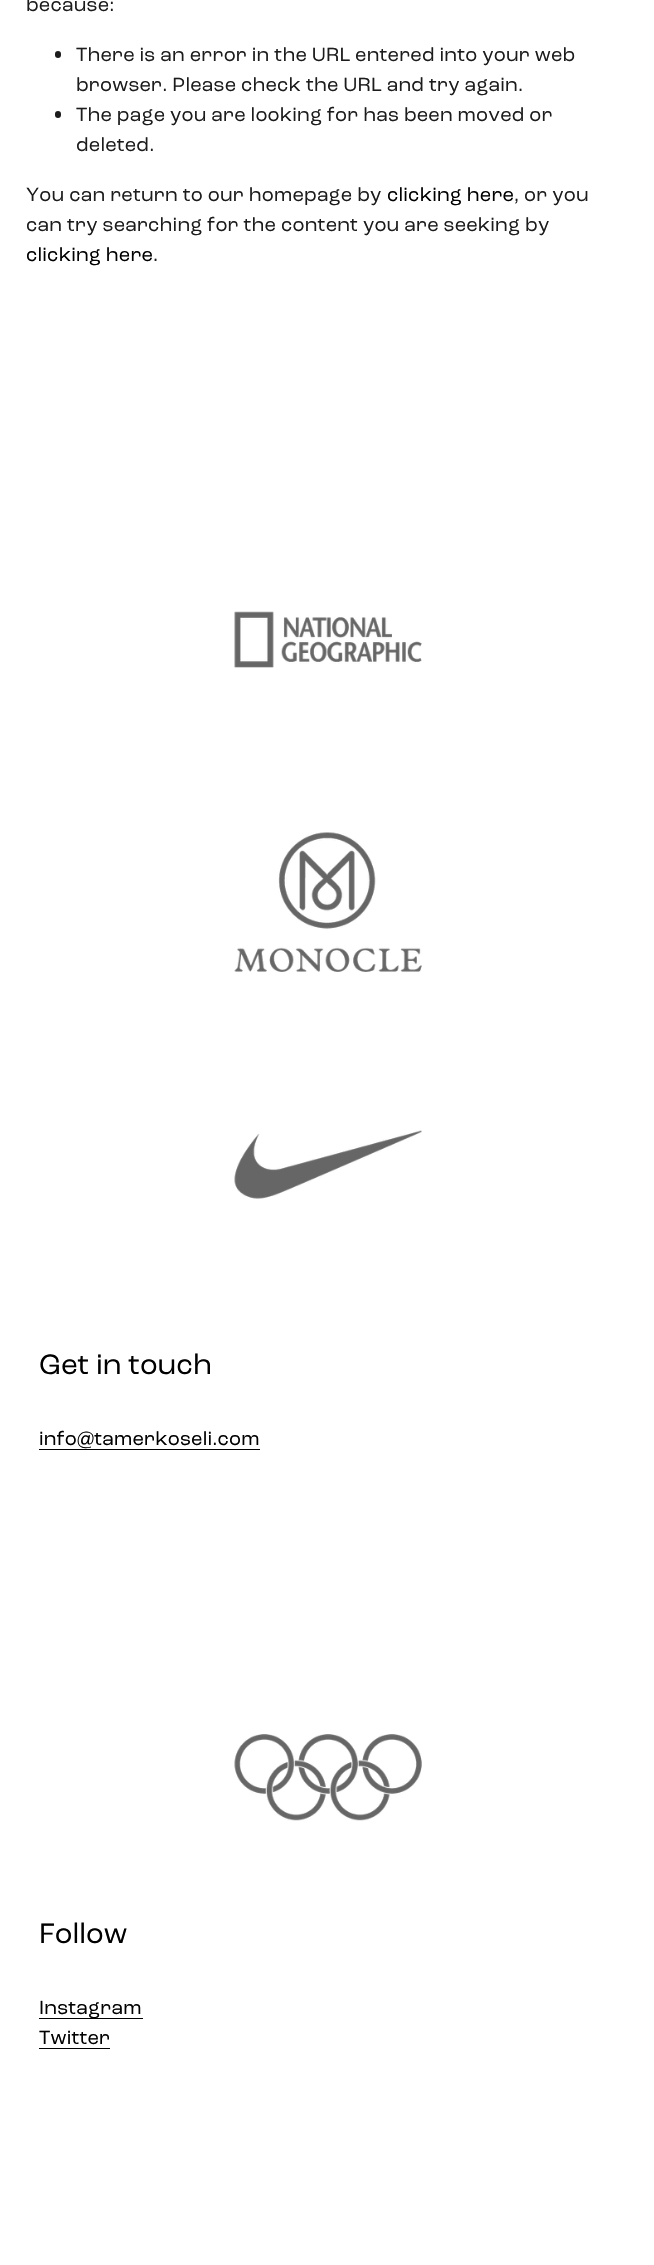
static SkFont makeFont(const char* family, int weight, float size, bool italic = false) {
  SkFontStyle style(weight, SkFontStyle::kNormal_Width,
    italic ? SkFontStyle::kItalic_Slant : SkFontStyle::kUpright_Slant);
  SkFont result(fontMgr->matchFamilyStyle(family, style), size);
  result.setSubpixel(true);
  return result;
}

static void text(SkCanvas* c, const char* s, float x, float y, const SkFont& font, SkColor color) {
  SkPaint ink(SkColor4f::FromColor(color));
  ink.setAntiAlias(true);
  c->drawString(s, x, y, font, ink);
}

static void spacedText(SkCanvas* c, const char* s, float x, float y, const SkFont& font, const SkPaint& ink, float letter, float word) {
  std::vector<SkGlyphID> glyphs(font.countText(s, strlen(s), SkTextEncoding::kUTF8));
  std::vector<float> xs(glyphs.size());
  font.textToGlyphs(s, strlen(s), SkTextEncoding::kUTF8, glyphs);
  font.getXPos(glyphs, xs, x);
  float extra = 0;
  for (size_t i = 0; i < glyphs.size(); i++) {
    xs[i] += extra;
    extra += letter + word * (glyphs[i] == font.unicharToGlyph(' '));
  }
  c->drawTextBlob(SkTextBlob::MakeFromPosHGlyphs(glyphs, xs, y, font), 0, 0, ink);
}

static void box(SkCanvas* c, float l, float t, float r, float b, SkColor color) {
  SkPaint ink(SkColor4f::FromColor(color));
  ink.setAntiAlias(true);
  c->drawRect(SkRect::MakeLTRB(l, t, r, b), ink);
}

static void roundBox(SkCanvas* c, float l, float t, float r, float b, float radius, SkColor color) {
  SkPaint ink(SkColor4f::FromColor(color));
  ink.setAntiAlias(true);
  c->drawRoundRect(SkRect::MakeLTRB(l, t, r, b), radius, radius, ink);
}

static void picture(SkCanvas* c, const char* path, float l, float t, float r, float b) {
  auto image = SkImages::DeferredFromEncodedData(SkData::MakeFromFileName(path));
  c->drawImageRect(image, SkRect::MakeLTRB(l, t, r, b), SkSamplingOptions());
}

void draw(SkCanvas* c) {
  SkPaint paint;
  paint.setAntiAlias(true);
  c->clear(0xffffffff);
  SkFont face1 = makeFont("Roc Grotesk", 400, 20);
  paint.setColor(0xff1c1c1c);
  spacedText(c, "because:", 26, 11, face1, paint, 0.2f, 0);
  roundBox(c, 55, 51, 61, 58, 3, 0xff1c1c1c);
  spacedText(c, "There is an error in the URL entered into your web", 76, 61, face1, paint, 0.2f, 0);
  spacedText(c, "browser. Please check the URL and try again.", 76, 91, face1, paint, 0.2f, 0);
  roundBox(c, 55, 111, 61, 118, 3, 0xff1c1c1c);
  spacedText(c, "The page you are looking for has been moved or", 76, 121, face1, paint, 0.2f, 0);
  spacedText(c, "deleted.", 76, 151, face1, paint, 0.2f, 0);
  spacedText(c, "You can return to our homepage by", 26, 201, face1, paint, 0.2f, 0);
  paint.setColor(0xff000000);
  spacedText(c, "clicking here", 387, 201, face1, paint, 0.2f, 0);
  paint.setColor(0xff1c1c1c);
  spacedText(c, ", or you", 514, 201, face1, paint, 0.2f, 0);
  spacedText(c, "can try searching for the content you are seeking by", 26, 231, face1, paint, 0.2f, 0);
  paint.setColor(0xff000000);
  spacedText(c, "clicking here", 26, 261, face1, paint, 0.2f, 0);
  paint.setColor(0xff1c1c1c);
  spacedText(c, ".", 153, 261, face1, paint, 0.2f, 0);
  picture(c, "img_01.png", 234, 611, 422, 668);
  picture(c, "img_02.png", 234, 832, 422, 972);
  picture(c, "img_03.png", 234, 1130, 422, 1199);
  SkFont face2 = makeFont("Roc Grotesk", 400, 29.5f);
  text(c, "Get in touch", 39, 1374, face2, 0xff000000);
  paint.setColor(0xff000000);
  spacedText(c, "info@tamerkoseli.com", 39, 1445, face1, paint, 0.2f, 0);
  box(c, 39, 1449, 260, 1450, 0xff000000);
  picture(c, "img_04.png", 234, 1734, 422, 1821);
  text(c, "Follow", 39, 1943, face2, 0xff000000);
  box(c, 39, 2018, 143, 2019, 0xff000000);
  spacedText(c, "Instagram", 39, 2014, face1, paint, 0.2f, 0);
  spacedText(c, "Twitter", 39, 2044, face1, paint, 0.2f, 0);
  box(c, 39, 2048, 110, 2049, 0xff000000);
}
